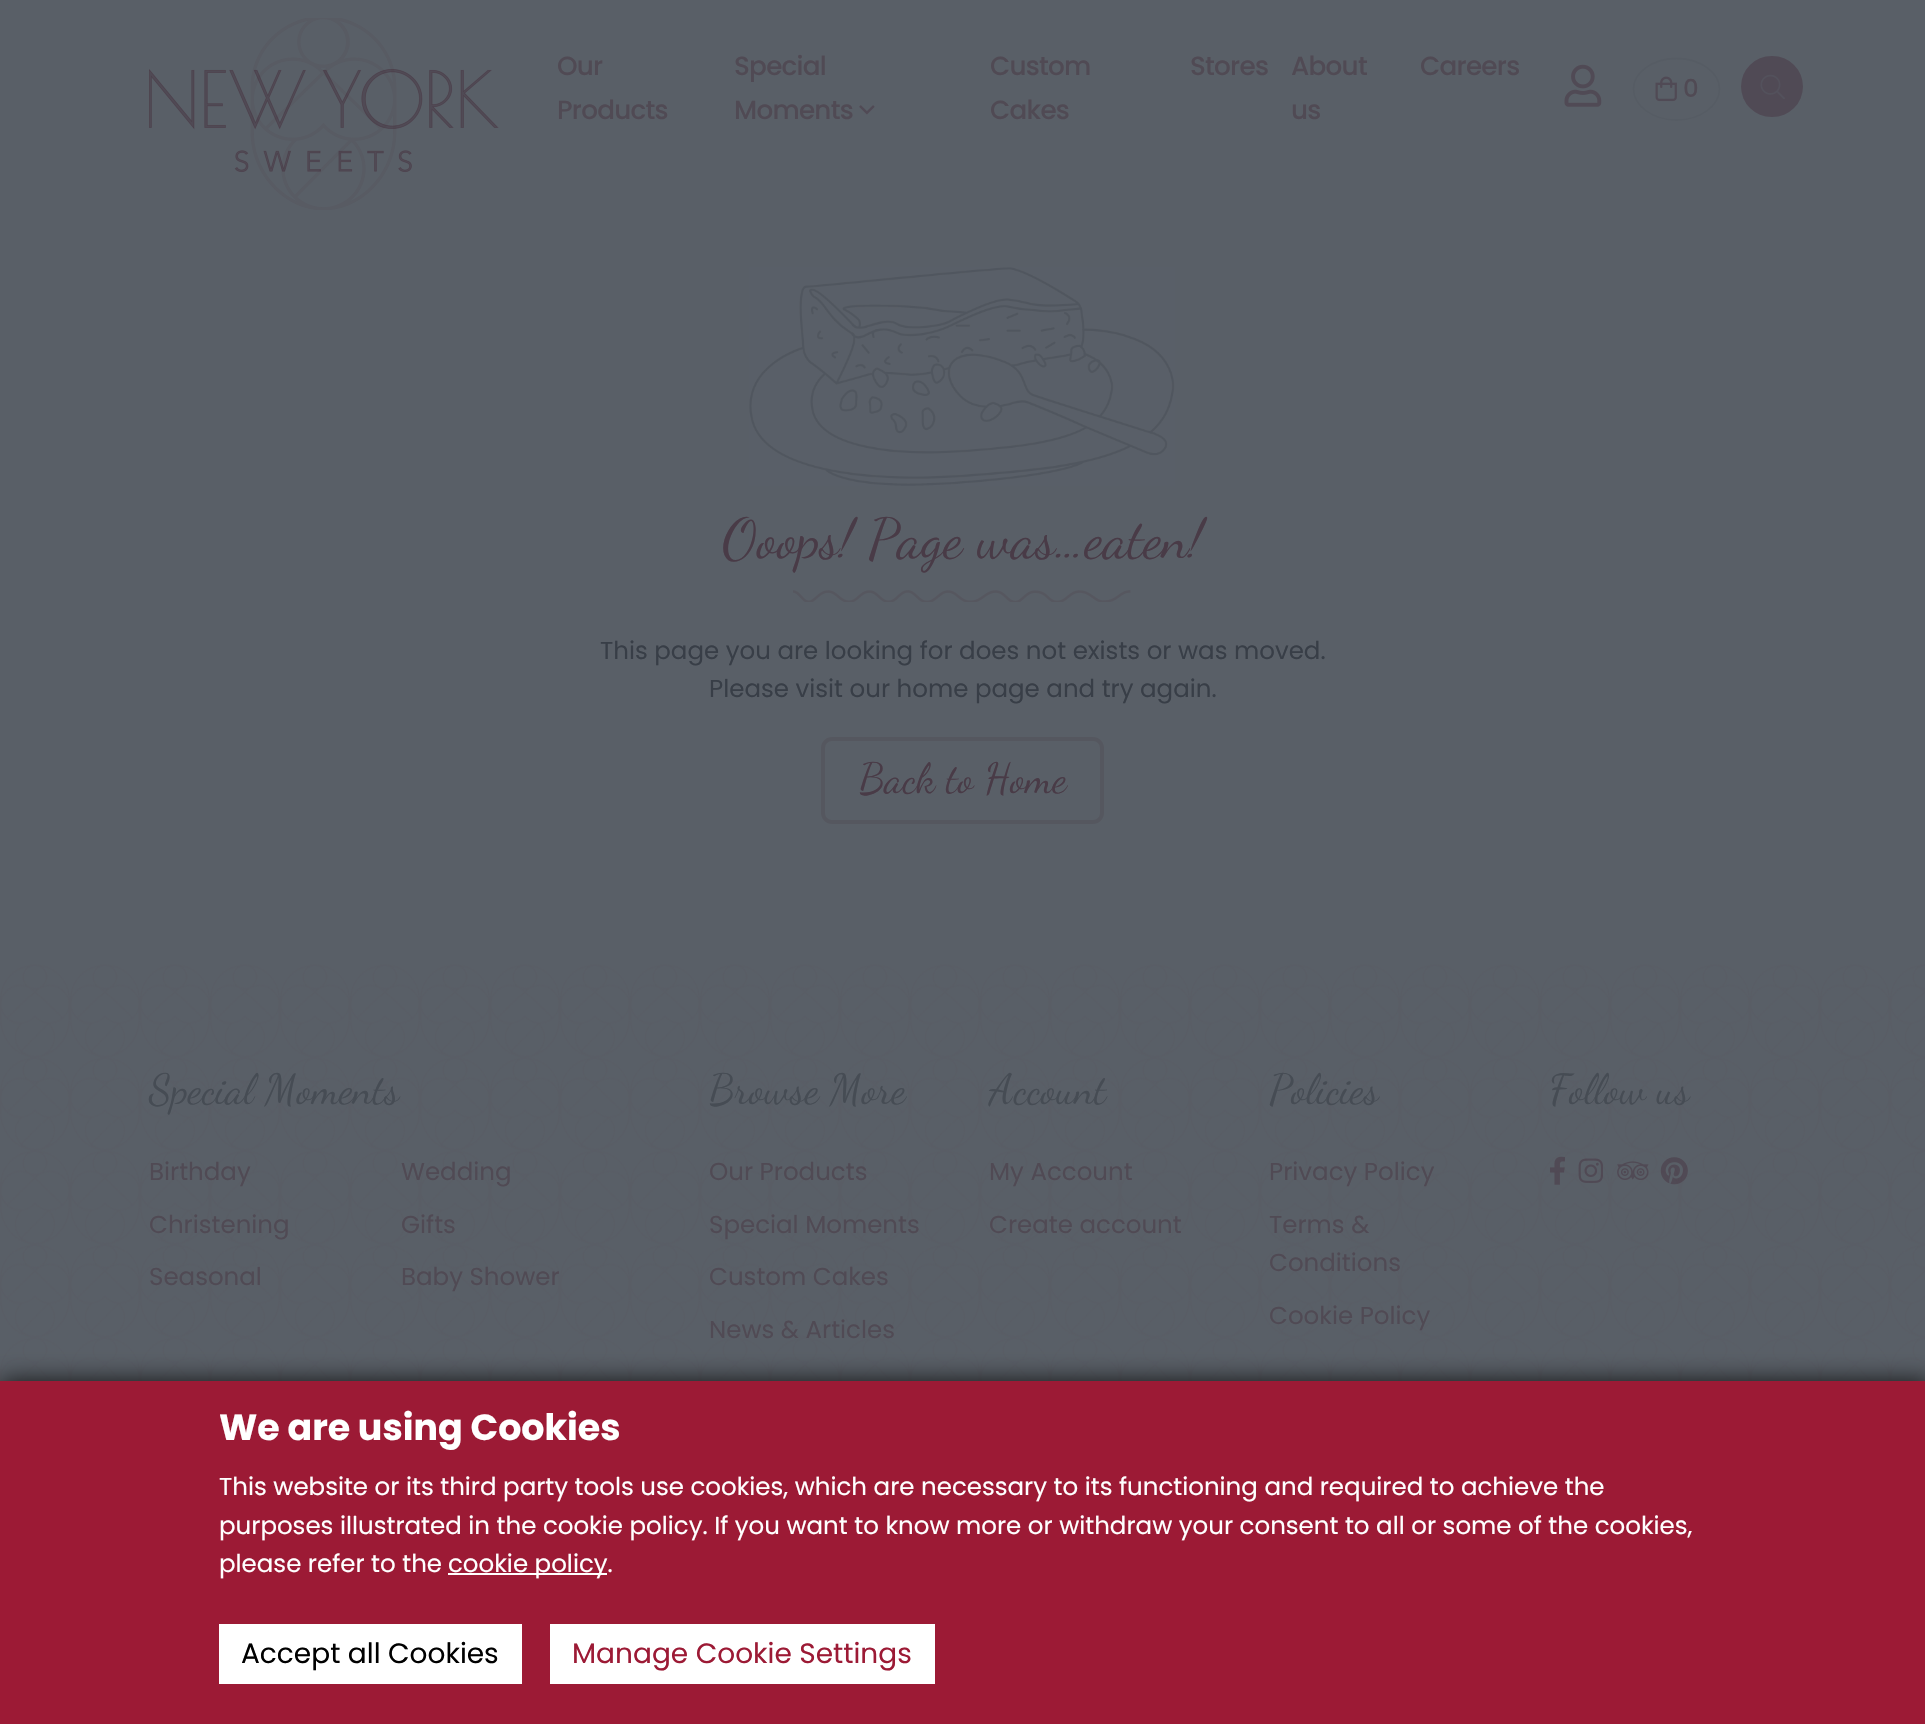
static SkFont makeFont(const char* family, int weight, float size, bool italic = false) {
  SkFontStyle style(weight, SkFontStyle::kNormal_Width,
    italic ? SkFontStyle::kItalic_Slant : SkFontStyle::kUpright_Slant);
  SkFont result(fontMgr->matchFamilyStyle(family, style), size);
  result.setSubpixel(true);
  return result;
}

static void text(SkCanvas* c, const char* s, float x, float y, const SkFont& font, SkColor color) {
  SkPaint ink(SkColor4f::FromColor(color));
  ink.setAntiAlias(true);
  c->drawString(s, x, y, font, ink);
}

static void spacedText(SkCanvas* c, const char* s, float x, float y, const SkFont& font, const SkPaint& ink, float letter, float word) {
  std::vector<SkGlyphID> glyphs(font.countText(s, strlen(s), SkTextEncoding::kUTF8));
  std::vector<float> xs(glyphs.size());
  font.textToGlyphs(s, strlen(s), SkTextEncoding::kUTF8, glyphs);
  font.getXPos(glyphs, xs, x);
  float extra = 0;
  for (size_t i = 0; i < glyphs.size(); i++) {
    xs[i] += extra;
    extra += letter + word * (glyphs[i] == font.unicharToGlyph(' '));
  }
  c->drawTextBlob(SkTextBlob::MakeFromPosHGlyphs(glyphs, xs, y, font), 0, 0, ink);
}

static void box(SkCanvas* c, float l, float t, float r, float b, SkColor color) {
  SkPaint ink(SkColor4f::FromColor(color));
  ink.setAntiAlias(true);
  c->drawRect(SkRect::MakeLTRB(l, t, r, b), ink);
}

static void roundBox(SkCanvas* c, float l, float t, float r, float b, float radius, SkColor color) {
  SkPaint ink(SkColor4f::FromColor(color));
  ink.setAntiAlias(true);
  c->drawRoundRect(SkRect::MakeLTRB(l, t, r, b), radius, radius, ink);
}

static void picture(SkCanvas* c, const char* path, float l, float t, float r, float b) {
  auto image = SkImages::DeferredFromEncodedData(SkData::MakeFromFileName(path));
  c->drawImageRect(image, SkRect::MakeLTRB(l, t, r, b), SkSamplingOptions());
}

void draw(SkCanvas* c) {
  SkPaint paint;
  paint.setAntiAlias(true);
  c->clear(0xff595f67);
  picture(c, "img_01.png", 149, 18, 499, 210);
  SkFont face1 = makeFont("Poppins", 500, 26.25f);
  paint.setColor(0xff504a54);
  spacedText(c, "Our", 557, 75, face1, paint, -0.75f, 0);
  spacedText(c, "Products", 557, 119, face1, paint, -0.75f, 0);
  spacedText(c, "Special", 734, 75, face1, paint, -0.75f, 0);
  spacedText(c, "Moments", 734, 119, face1, paint, -0.75f, 0);
  picture(c, "img_02.png", 859, 105, 875, 115);
  spacedText(c, "Custom", 990, 75, face1, paint, -0.75f, 0);
  spacedText(c, "Cakes", 990, 119, face1, paint, -0.75f, 0);
  spacedText(c, "Stores", 1190, 75, face1, paint, -0.75f, 0);
  spacedText(c, "About", 1291, 75, face1, paint, -0.75f, 0);
  spacedText(c, "us", 1291, 119, face1, paint, -0.75f, 0);
  spacedText(c, "Careers", 1420, 75, face1, paint, -0.75f, 0);
  picture(c, "img_03.png", 1564, 64, 1602, 107);
  paint.setStyle(SkPaint::kStroke_Style);
  paint.setStrokeWidth(1.8f);
  paint.setColor(0xff565c64);
  c->drawPath(SkPathBuilder().moveTo(1676.5f, 58.5f).cubicTo(1700, 58.5f, 1719.5f, 72.5f, 1719.5f, 89).cubicTo(1719.5f, 106, 1700, 120, 1676.5f, 120).cubicTo(1653, 120, 1633.5f, 106, 1633.5f, 89).cubicTo(1633.5f, 72.5f, 1653, 58.5f, 1676.5f, 58.5f).close().detach(), paint);
  picture(c, "img_04.png", 1655, 76, 1677, 102);
  SkFont face2 = makeFont("Poppins", 500, 24.5f);
  paint.setStyle(SkPaint::kFill_Style);
  paint.setColor(0xff504a54);
  spacedText(c, "0", 1683, 97, face2, paint, -0.75f, 0);
  roundBox(c, 1741, 56, 1803, 117, 30.5f, 0xff504a55);
  picture(c, "img_05.png", 1760, 74, 1785, 99);
  picture(c, "img_06.png", 749, 267, 1175, 486);
  SkFont face3 = makeFont("Dancing Script", 400, 56);
  text(c, "Ooops! Page was…eaten!", 722, 557, face3, 0xff493b47);
  picture(c, "img_07.png", 793, 590, 1131, 602);
  SkFont face4 = makeFont("Poppins", 400, 24.5f);
  text(c, "This page you are looking for does not exists or was moved.", 600, 659, face4, 0xff383e47);
  text(c, "Please visit our home page and try again.", 709, 697, face4, 0xff383e47);
  paint.setStyle(SkPaint::kStroke_Style);
  paint.setStrokeWidth(4);
  paint.setColor(0xff55575f);
  c->drawRoundRect(SkRect::MakeLTRB(823, 739, 1102, 822), 9, 9, paint);
  SkFont face5 = makeFont("Dancing Script", 400, 42);
  text(c, "Back to Home", 859, 792, face5, 0xff493b47);
  picture(c, "img_08.png", 0, 964, 1925, 1381);
  text(c, "Special Moments", 149, 1103, face5, 0xff464c54);
  text(c, "Birthday", 149, 1180, face4, 0xff504a54);
  text(c, "Wedding", 401, 1180, face4, 0xff504a54);
  text(c, "Christening", 149, 1233, face4, 0xff504a54);
  text(c, "Gifts", 401, 1233, face4, 0xff504a54);
  text(c, "Seasonal", 149, 1285, face4, 0xff504a54);
  text(c, "Baby Shower", 401, 1285, face4, 0xff504a54);
  text(c, "Browse More", 709, 1103, face5, 0xff464c54);
  text(c, "Our Products", 709, 1180, face4, 0xff504a54);
  text(c, "Special Moments", 709, 1233, face4, 0xff504a54);
  text(c, "Custom Cakes", 709, 1285, face4, 0xff504a54);
  text(c, "News & Articles", 709, 1338, face4, 0xff504a54);
  text(c, "Account", 989, 1103, face5, 0xff464c54);
  text(c, "My Account", 989, 1180, face4, 0xff504a54);
  text(c, "Create account", 989, 1233, face4, 0xff504a54);
  text(c, "Policies", 1269, 1103, face5, 0xff464c54);
  text(c, "Privacy Policy", 1269, 1180, face4, 0xff504a54);
  text(c, "Terms &", 1269, 1233, face4, 0xff504a54);
  text(c, "Conditions", 1269, 1271, face4, 0xff504a54);
  text(c, "Cookie Policy", 1269, 1324, face4, 0xff504a54);
  text(c, "Follow us", 1549, 1103, face5, 0xff464c54);
  picture(c, "img_09.png", 1550, 1156, 1565, 1185);
  picture(c, "img_10.png", 1578, 1158, 1603, 1183);
  picture(c, "img_11.png", 1617, 1161, 1649, 1180);
  picture(c, "img_12.png", 1660, 1157, 1688, 1185);
  paint.setStyle(SkPaint::kFill_Style);
  paint.setColor(0xff121212);
  paint.setMaskFilter(SkMaskFilter::MakeBlur(kNormal_SkBlurStyle, 12));
  c->drawRect(SkRect::MakeLTRB(0, 1381, 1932, 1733), paint);
  paint.setMaskFilter(nullptr);
  box(c, 0, 1381, 1925, 1724, 0xff9c1a35);
  SkFont face6 = makeFont("Poppins", 700, 36.4f);
  text(c, "We are using Cookies", 219, 1440, face6, 0xffffffff);
  text(c, "This website or its third party tools use cookies, which are necessary to its functioning and required to achieve the", 219, 1495, face4, 0xffffffff);
  text(c, "purposes illustrated in the cookie policy. If you want to know more or withdraw your consent to all or some of the cookies,", 219, 1534, face4, 0xffffffff);
  text(c, "please refer to the", 219, 1572, face4, 0xffffffff);
  box(c, 448, 1573, 607, 1575, 0xffffffff);
  text(c, "cookie policy.", 448, 1572, face4, 0xffffffff);
  box(c, 219, 1624, 522, 1684, 0xffffffff);
  SkFont face7 = makeFont("Poppins", 400, 28);
  text(c, "Accept all Cookies", 241, 1663, face7, 0xff000000);
  box(c, 550, 1624, 935, 1684, 0xffffffff);
  text(c, "Manage Cookie Settings", 572, 1663, face7, 0xff9c1a35);
}
